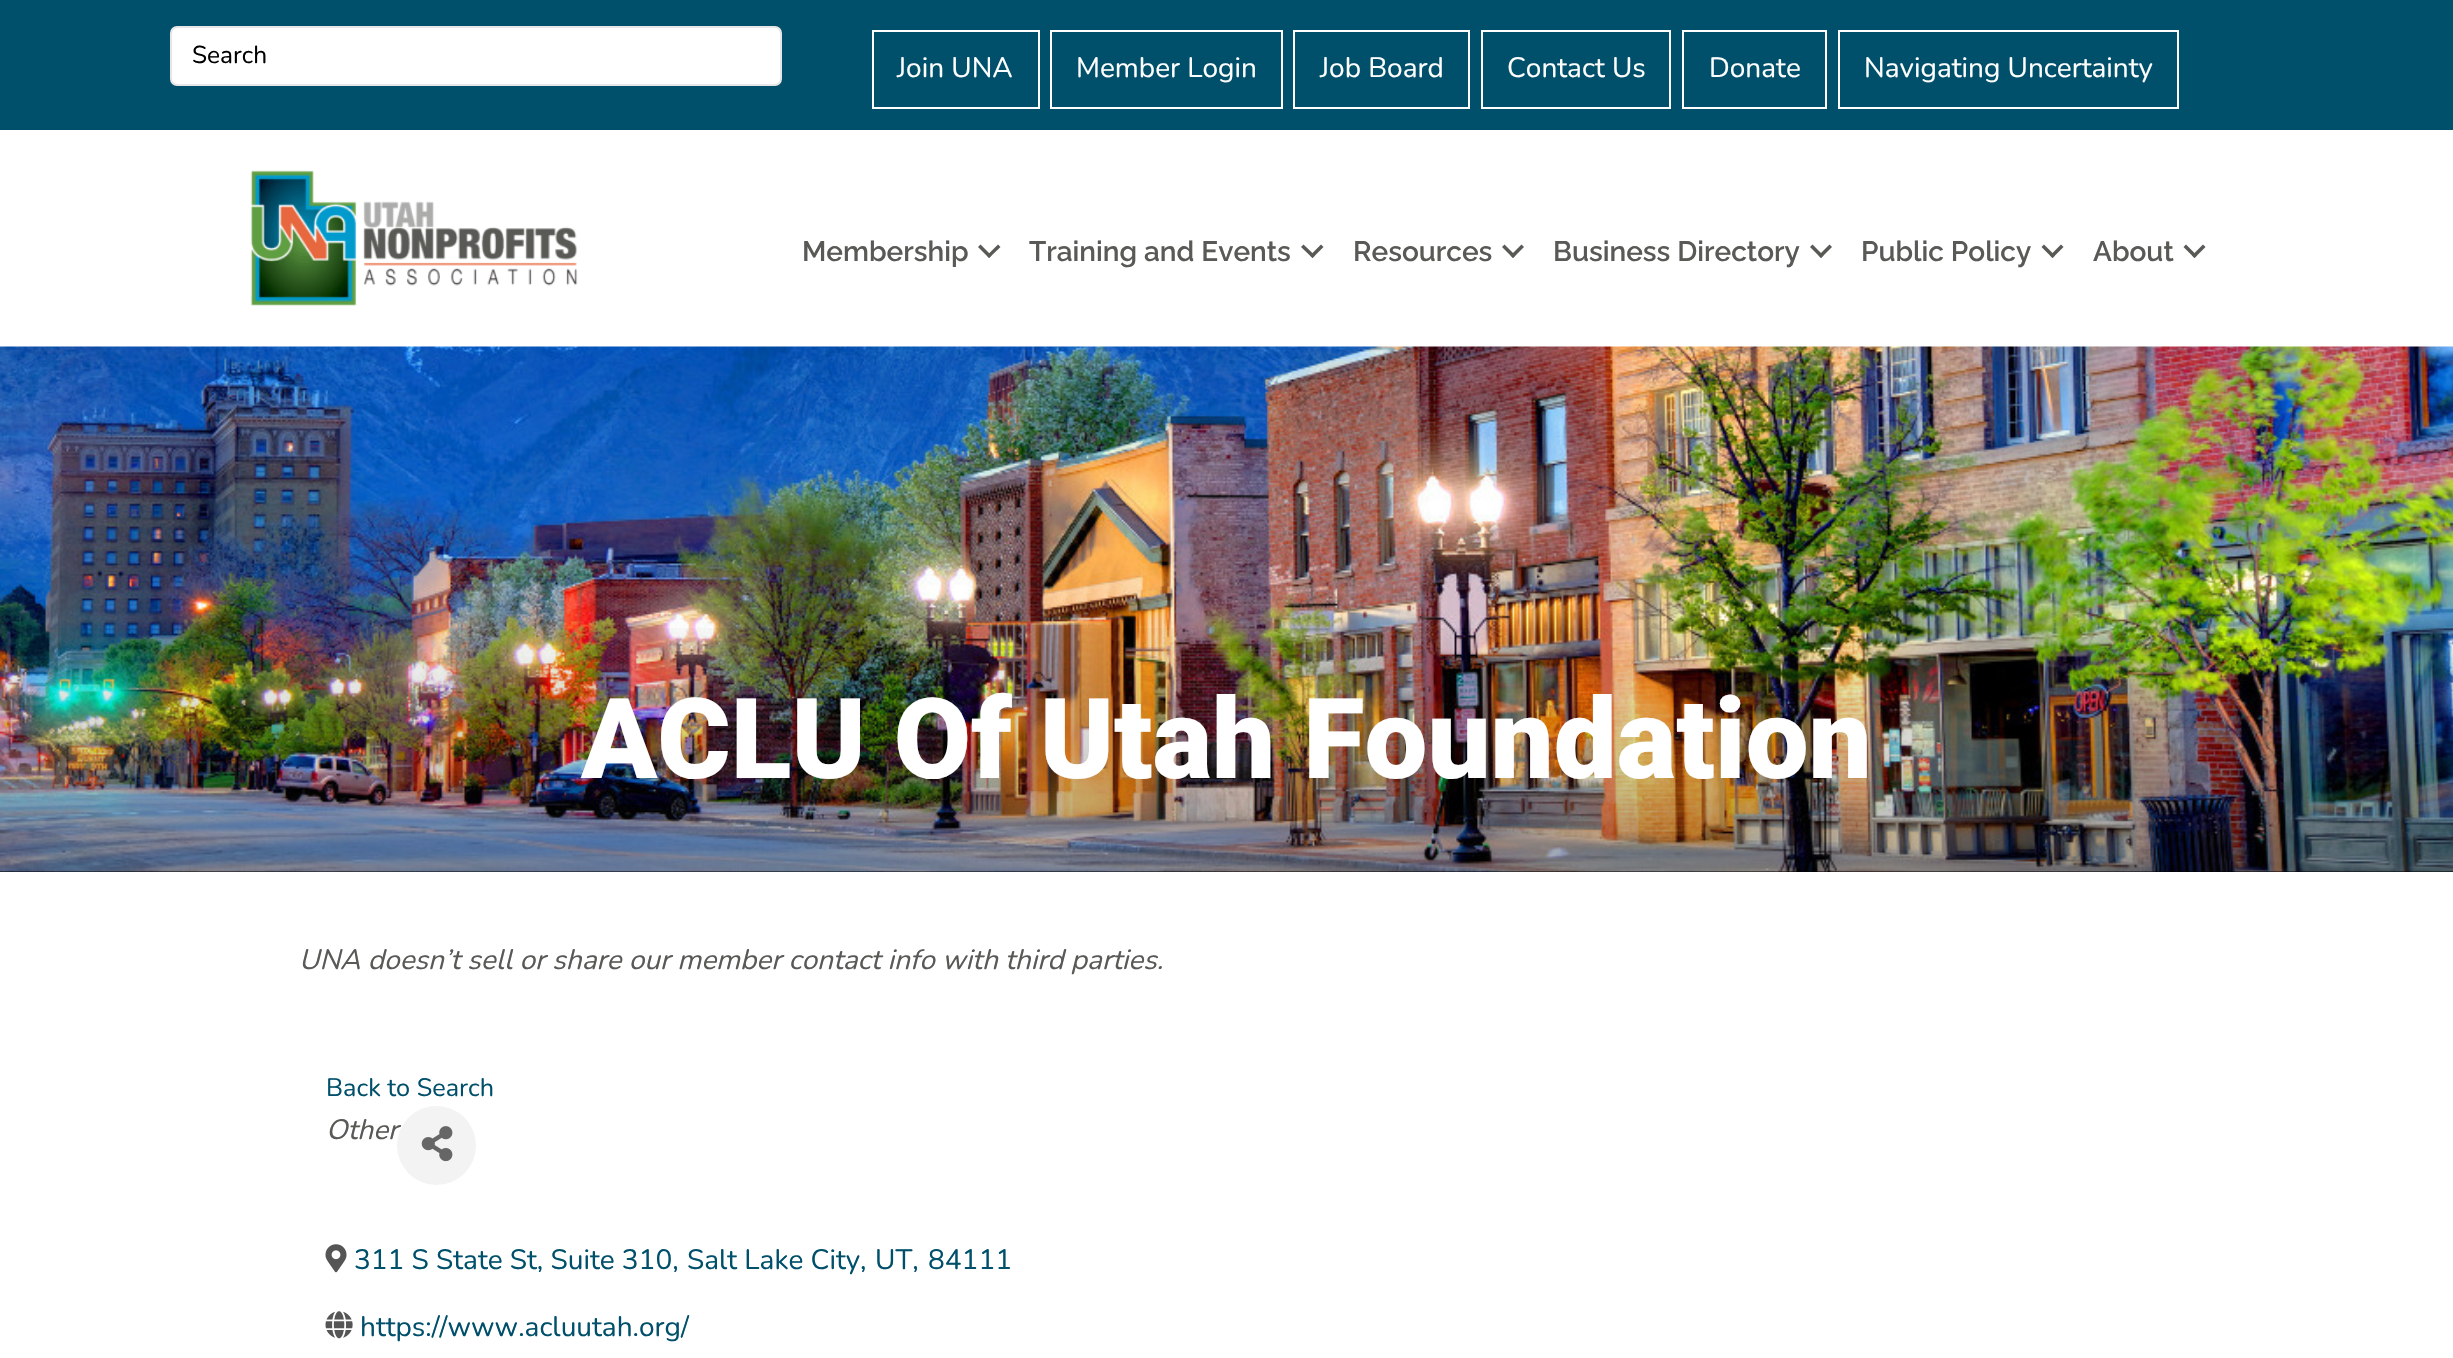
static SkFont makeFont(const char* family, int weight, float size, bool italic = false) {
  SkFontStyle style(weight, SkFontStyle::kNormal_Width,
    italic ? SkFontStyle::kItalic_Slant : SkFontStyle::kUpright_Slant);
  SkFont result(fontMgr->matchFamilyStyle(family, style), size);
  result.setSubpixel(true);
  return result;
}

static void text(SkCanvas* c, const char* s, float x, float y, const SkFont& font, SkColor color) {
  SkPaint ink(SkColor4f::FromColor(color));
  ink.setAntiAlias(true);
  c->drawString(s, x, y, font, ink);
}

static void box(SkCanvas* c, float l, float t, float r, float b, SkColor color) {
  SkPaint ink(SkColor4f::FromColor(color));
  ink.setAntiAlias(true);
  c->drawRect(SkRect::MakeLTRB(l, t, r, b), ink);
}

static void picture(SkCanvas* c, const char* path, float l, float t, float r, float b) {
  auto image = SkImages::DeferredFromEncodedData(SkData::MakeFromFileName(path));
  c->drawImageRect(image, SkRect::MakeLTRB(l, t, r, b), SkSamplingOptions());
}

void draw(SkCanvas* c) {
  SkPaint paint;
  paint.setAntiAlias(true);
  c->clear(0xffffffff);
  box(c, 0, 0, 2453, 130, 0xff00506b);
  paint.setColor(0xffffffff);
  c->drawRoundRect(SkRect::MakeLTRB(171, 27, 781, 85), 6, 6, paint);
  paint.setStyle(SkPaint::kStroke_Style);
  paint.setStrokeWidth(2);
  paint.setColor(0xffe6e6e6);
  c->drawRoundRect(SkRect::MakeLTRB(171, 27, 781, 85), 6, 6, paint);
  SkFont face1 = makeFont("Nunito", 400, 24.5f);
  text(c, "Search", 192, 63, face1, 0xff000000);
  paint.setColor(0xffffffff);
  c->drawRect(SkRect::MakeLTRB(873, 31, 1039, 108), paint);
  SkFont face2 = makeFont("Nunito", 400, 28);
  text(c, "Join UNA", 897, 77, face2, 0xffffffff);
  c->drawRect(SkRect::MakeLTRB(1051, 31, 1282, 108), paint);
  text(c, "Member Login", 1076, 77, face2, 0xffffffff);
  c->drawRect(SkRect::MakeLTRB(1294, 31, 1469, 108), paint);
  text(c, "Job Board", 1320, 77, face2, 0xffffffff);
  c->drawRect(SkRect::MakeLTRB(1482, 31, 1670, 108), paint);
  text(c, "Contact Us", 1507, 77, face2, 0xffffffff);
  c->drawRect(SkRect::MakeLTRB(1683, 31, 1826, 108), paint);
  text(c, "Donate", 1709, 77, face2, 0xffffffff);
  c->drawRect(SkRect::MakeLTRB(1839, 31, 2178, 108), paint);
  text(c, "Navigating Uncertainty", 1864, 77, face2, 0xffffffff);
  picture(c, "img_01.png", 250, 170, 578, 306);
  SkFont face3 = makeFont("Raleway", 100, 28);
  text(c, "Membership", 802, 261, face3, 0xff595955);
  paint.setStyle(SkPaint::kFill_Style);
  paint.setColor(0xff595955);
  c->drawPath(SkPathBuilder().moveTo(998, 244.5f).lineTo(1000.5f, 247).lineTo(989, 258).lineTo(987, 255.5f).close().detach(), paint);
  c->drawPath(SkPathBuilder().moveTo(980.5f, 244.5f).lineTo(991.5f, 255.5f).lineTo(989, 258).lineTo(978, 247).close().detach(), paint);
  text(c, "Training and Events", 1029, 261, face3, 0xff595955);
  c->drawPath(SkPathBuilder().moveTo(1321, 244.5f).lineTo(1323.5f, 247).lineTo(1312.5f, 258).lineTo(1310, 255.5f).close().detach(), paint);
  c->drawPath(SkPathBuilder().moveTo(1303.5f, 244.5f).lineTo(1315, 255.5f).lineTo(1312.5f, 258).lineTo(1301, 247).close().detach(), paint);
  text(c, "Resources", 1353, 261, face3, 0xff595955);
  c->drawPath(SkPathBuilder().moveTo(1521.5f, 244.5f).lineTo(1524, 247).lineTo(1513, 258).lineTo(1510.5f, 255.5f).close().detach(), paint);
  c->drawPath(SkPathBuilder().moveTo(1504.5f, 244.5f).lineTo(1515.5f, 255.5f).lineTo(1513, 258).lineTo(1502, 247).close().detach(), paint);
  text(c, "Business Directory", 1553, 261, face3, 0xff595955);
  c->drawPath(SkPathBuilder().moveTo(1829.5f, 244.5f).lineTo(1832, 247).lineTo(1821, 258).lineTo(1818.5f, 255.5f).close().detach(), paint);
  c->drawPath(SkPathBuilder().moveTo(1812.5f, 244.5f).lineTo(1823.5f, 255.5f).lineTo(1821, 258).lineTo(1810, 247).close().detach(), paint);
  text(c, "Public Policy", 1861, 261, face3, 0xff595955);
  c->drawPath(SkPathBuilder().moveTo(2061, 244.5f).lineTo(2063.5f, 247).lineTo(2052.5f, 258).lineTo(2050, 255.5f).close().detach(), paint);
  c->drawPath(SkPathBuilder().moveTo(2044, 244.5f).lineTo(2055, 255.5f).lineTo(2052.5f, 258).lineTo(2041.5f, 247).close().detach(), paint);
  text(c, "About", 2093, 261, face3, 0xff595955);
  c->drawPath(SkPathBuilder().moveTo(2203, 244.5f).lineTo(2205.5f, 247).lineTo(2194.5f, 258).lineTo(2192, 255.5f).close().detach(), paint);
  c->drawPath(SkPathBuilder().moveTo(2186, 244.5f).lineTo(2197, 255.5f).lineTo(2194.5f, 258).lineTo(2183.5f, 247).close().detach(), paint);
  box(c, 0, 871, 2453, 872, 0xff000000);
  picture(c, "img_02.png", 0, 346, 2453, 872);
  {
    const SkColor colors[] = {0x4d000000, 0x00000000};
    const float stops[] = {0, 0.5f};
    const SkPoint ends[] = {{1227, 872}, {1227, 347}};
    paint.setShader(SkGradientShader::MakeLinear(ends, colors, stops, 2, SkTileMode::kClamp));
    paint.setAlpha(255);
  }
  c->drawRect(SkRect::MakeLTRB(0, 628, 2453, 872), paint);
  SkFont face4 = makeFont("Roboto", 900, 112);
  text(c, "ACLU Of Utah Foundation", 581, 778, face4, 0xffffffff);
  SkFont face5 = makeFont("Nunito", 400, 28, true);
  text(c, "UNA doesn’t sell or share our member contact info with third parties.", 299, 969, face5, 0xff595955);
  SkFont face6 = makeFont("Nunito", 400, 25.25f);
  text(c, "Back to Search", 326, 1096, face6, 0xff00506b);
  text(c, "Other", 326, 1139, face5, 0xff595955);
  paint.setShader(nullptr);
  paint.setColor(0xfff3f3f3);
  c->drawCircle(436.5f, 1145.5f, 39.5f, paint);
  picture(c, "img_03.png", 421, 1126, 453, 1162);
  picture(c, "img_04.png", 325, 1244, 347, 1273);
  text(c, "311 S State St, Suite 310,", 354, 1269, face2, 0xff00506b);
  text(c, "Salt Lake City,", 687, 1269, face2, 0xff00506b);
  text(c, "UT,", 875, 1269, face2, 0xff00506b);
  text(c, "84111", 928, 1269, face2, 0xff00506b);
  picture(c, "img_05.png", 325, 1311, 353, 1339);
  text(c, "https://www.acluutah.org/", 360, 1336, face2, 0xff00506b);
}
